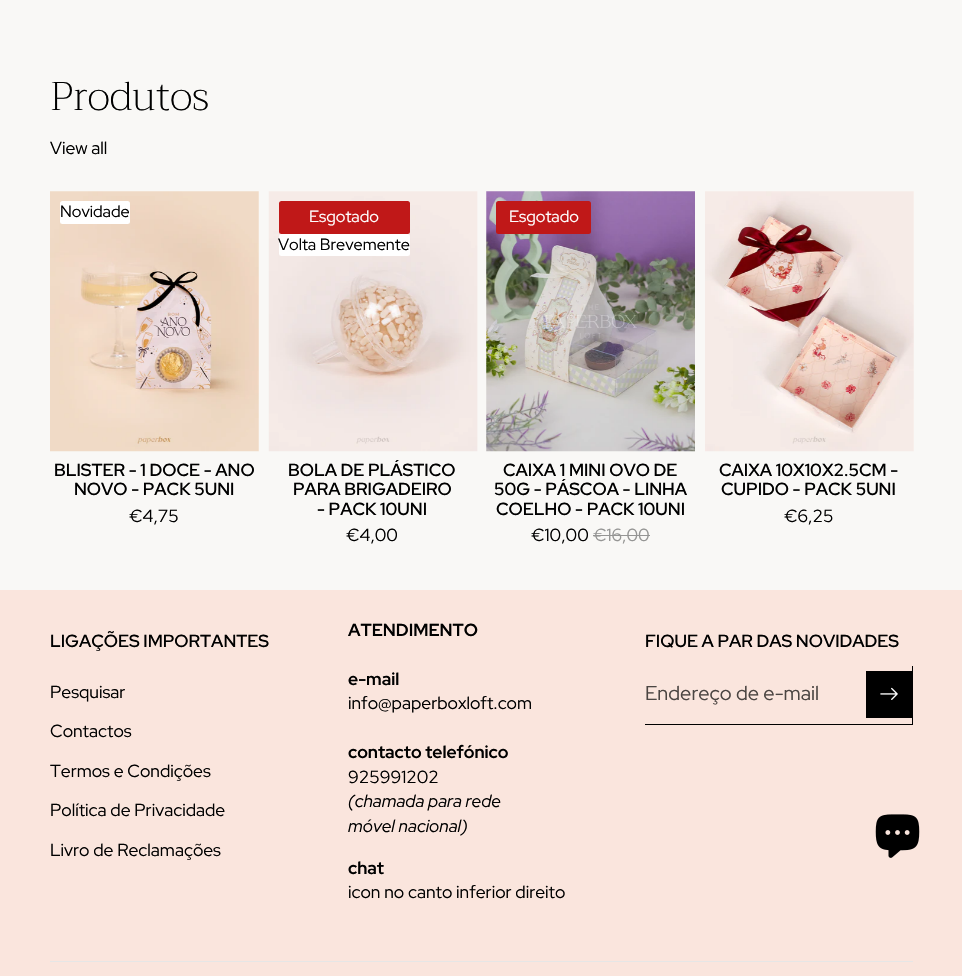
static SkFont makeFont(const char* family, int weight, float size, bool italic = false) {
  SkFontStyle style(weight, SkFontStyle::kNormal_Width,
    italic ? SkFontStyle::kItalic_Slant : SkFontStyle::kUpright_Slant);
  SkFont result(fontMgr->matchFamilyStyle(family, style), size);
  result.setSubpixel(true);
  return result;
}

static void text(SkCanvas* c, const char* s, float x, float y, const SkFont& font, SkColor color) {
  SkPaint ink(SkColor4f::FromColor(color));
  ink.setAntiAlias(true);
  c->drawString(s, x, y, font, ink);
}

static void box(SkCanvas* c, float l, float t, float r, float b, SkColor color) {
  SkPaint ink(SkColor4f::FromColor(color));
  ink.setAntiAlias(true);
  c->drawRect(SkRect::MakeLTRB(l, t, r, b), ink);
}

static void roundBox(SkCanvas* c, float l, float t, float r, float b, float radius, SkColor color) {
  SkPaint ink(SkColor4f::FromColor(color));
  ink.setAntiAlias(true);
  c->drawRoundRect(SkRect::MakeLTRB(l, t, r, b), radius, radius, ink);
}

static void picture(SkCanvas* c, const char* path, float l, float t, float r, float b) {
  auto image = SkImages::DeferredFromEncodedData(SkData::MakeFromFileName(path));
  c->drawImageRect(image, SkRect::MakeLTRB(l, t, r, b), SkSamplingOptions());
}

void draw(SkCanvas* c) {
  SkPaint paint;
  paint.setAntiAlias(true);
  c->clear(0xfff9f8f6);
  SkFont face1 = makeFont("Trirong", 300, 40);
  text(c, "Produtos", 50, 110, face1, 0xff000000);
  SkFont face2 = makeFont("Red Hat Display", 400, 17.5f);
  text(c, "View all", 50, 154, face2, 0xff000000);
  picture(c, "img_01.png", 50, 191, 259, 452);
  roundBox(c, 60, 201, 130, 224, 2.5f, 0xffffffff);
  SkFont face3 = makeFont("Red Hat Display", 400, 16.25f);
  text(c, "Novidade", 60, 217, face3, 0xff000000);
  SkFont face4 = makeFont("Red Hat Display", 600, 17.5f);
  text(c, "BLISTER - 1 DOCE - ANO", 54, 476, face4, 0xff000000);
  text(c, "NOVO - PACK 5UNI", 74, 495, face4, 0xff000000);
  text(c, "€4,75", 129, 522, face2, 0xff000000);
  picture(c, "img_02.png", 268, 191, 478, 452);
  roundBox(c, 279, 201, 410, 234, 2.5f, 0xffc01818);
  text(c, "Esgotado", 309, 222, face3, 0xffffffff);
  roundBox(c, 279, 234, 410, 256, 2.5f, 0xffffffff);
  text(c, "Volta Brevemente", 278, 250, face3, 0xff000000);
  text(c, "BOLA DE PLÁSTICO", 288, 476, face4, 0xff000000);
  text(c, "PARA BRIGADEIRO", 293, 495, face4, 0xff000000);
  text(c, "- PACK 10UNI", 317, 515, face4, 0xff000000);
  text(c, "€4,00", 346, 541, face2, 0xff000000);
  picture(c, "img_03.png", 486, 191, 695, 452);
  roundBox(c, 496, 201, 591, 234, 2.5f, 0xffc01818);
  text(c, "Esgotado", 509, 222, face3, 0xffffffff);
  text(c, "CAIXA 1 MINI OVO DE", 503, 476, face4, 0xff000000);
  text(c, "50G - PÁSCOA - LINHA", 494, 495, face4, 0xff000000);
  text(c, "COELHO - PACK 10UNI", 496, 515, face4, 0xff000000);
  text(c, "€10,00", 531, 541, face2, 0xff000000);
  text(c, "€16,00", 593, 541, face2, 0xff959594);
  box(c, 593, 535, 650, 536, 0xff959594);
  picture(c, "img_04.png", 705, 191, 914, 452);
  text(c, "CAIXA 10X10X2.5CM -", 719, 476, face4, 0xff000000);
  text(c, "CUPIDO - PACK 5UNI", 721, 495, face4, 0xff000000);
  text(c, "€6,25", 784, 522, face2, 0xff000000);
  box(c, 0, 590, 962, 976, 0xfffae5dd);
  text(c, "LIGAÇÕES IMPORTANTES", 50, 647, face4, 0xff000000);
  text(c, "Pesquisar", 50, 698, face2, 0xff000000);
  text(c, "Contactos", 50, 737, face2, 0xff000000);
  text(c, "Termos e Condições", 50, 777, face2, 0xff000000);
  text(c, "Política de Privacidade", 50, 816, face2, 0xff000000);
  text(c, "Livro de Reclamações", 50, 856, face2, 0xff000000);
  SkFont face5 = makeFont("Red Hat Display", 700, 17.5f);
  text(c, "ATENDIMENTO", 348, 636, face5, 0xff000000);
  text(c, "e-mail", 348, 685, face5, 0xff000000);
  text(c, "info@paperboxloft.com", 348, 709, face2, 0xff000000);
  text(c, "contacto telefónico", 348, 758, face5, 0xff000000);
  text(c, "925991202", 348, 783, face2, 0xff000000);
  SkFont face6 = makeFont("Red Hat Display", 400, 17.5f, true);
  text(c, "(chamada para rede", 348, 807, face6, 0xff000000);
  text(c, "móvel nacional)", 348, 832, face6, 0xff000000);
  text(c, "chat", 348, 874, face5, 0xff000000);
  text(c, "icon no canto inferior direito", 348, 898, face2, 0xff000000);
  text(c, "FIQUE A PAR DAS NOVIDADES", 645, 647, face4, 0xff000000);
  paint.setColor(0xff000000);
  c->drawPath(SkPathBuilder().moveTo(645, 724).lineTo(645, 725).lineTo(913, 725).lineTo(913, 666).lineTo(912, 666).lineTo(912, 724).close().detach(), paint);
  SkFont face7 = makeFont("Red Hat Display", 400, 20);
  text(c, "Endereço de e-mail", 645, 700, face7, 0xff4b4542);
  box(c, 866, 671, 912, 718, 0xff000000);
  picture(c, "img_05.png", 880, 687, 898, 700);
  picture(c, "img_06.png", 875, 814, 920, 858);
  box(c, 50, 961, 913, 962, 0xffe6e6e6);
}
